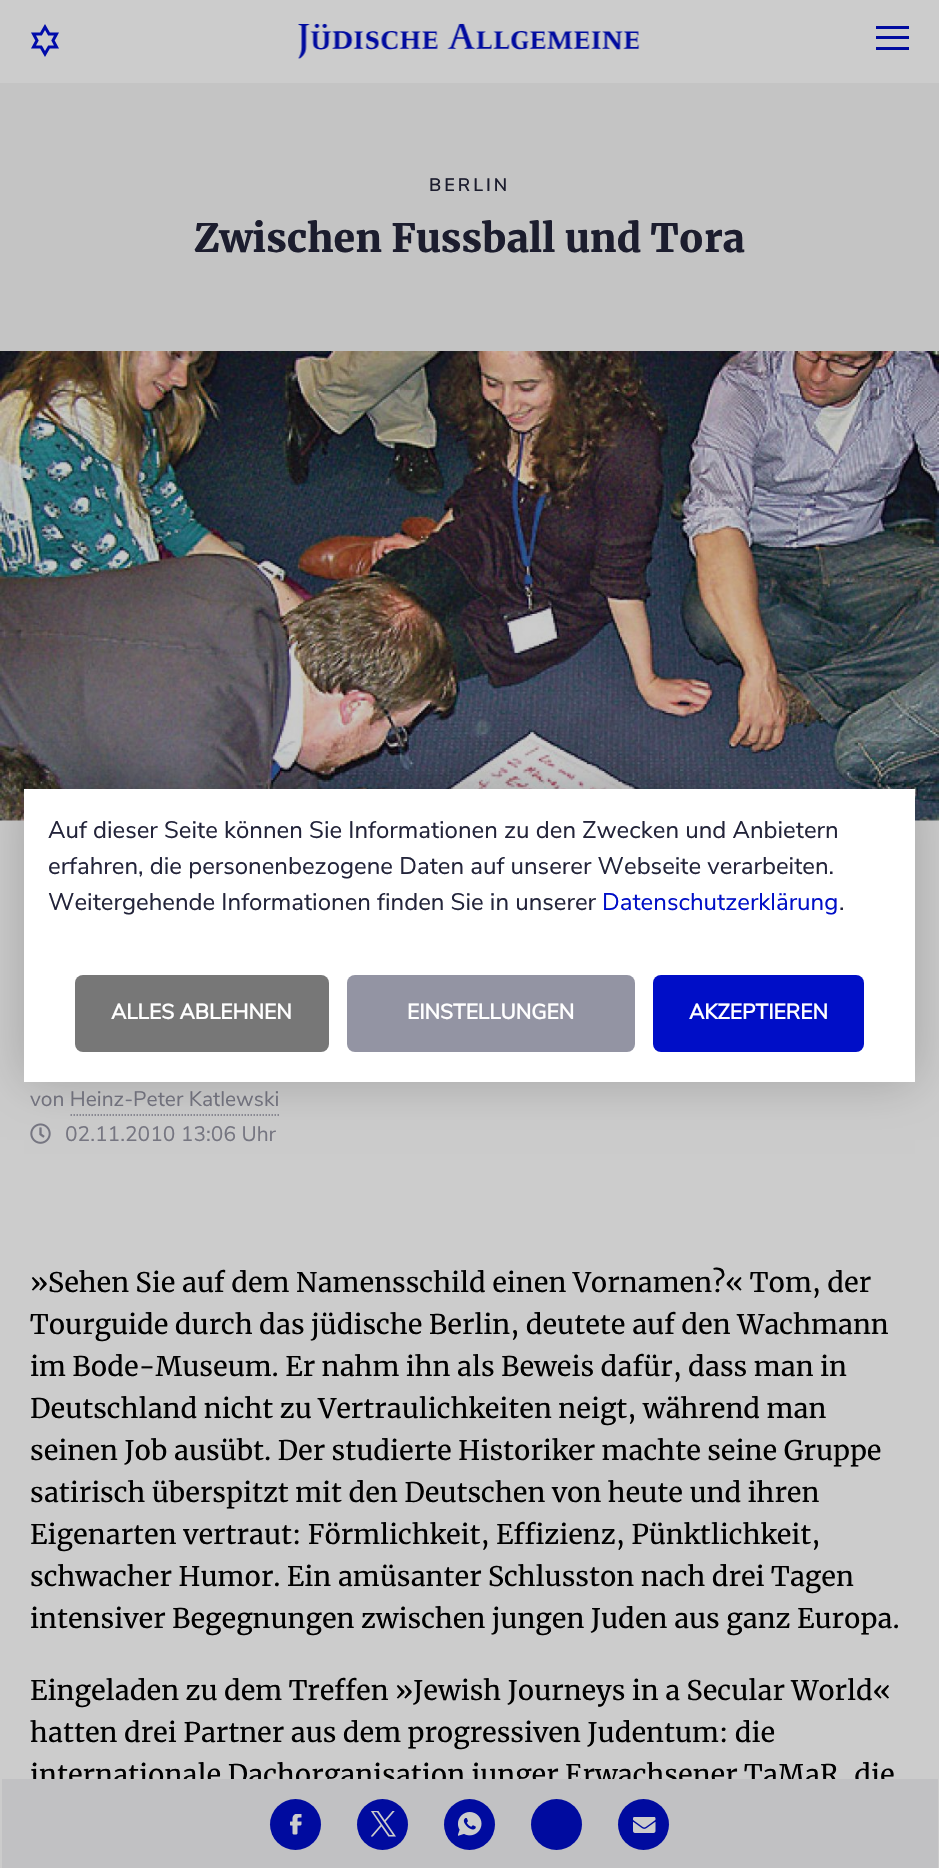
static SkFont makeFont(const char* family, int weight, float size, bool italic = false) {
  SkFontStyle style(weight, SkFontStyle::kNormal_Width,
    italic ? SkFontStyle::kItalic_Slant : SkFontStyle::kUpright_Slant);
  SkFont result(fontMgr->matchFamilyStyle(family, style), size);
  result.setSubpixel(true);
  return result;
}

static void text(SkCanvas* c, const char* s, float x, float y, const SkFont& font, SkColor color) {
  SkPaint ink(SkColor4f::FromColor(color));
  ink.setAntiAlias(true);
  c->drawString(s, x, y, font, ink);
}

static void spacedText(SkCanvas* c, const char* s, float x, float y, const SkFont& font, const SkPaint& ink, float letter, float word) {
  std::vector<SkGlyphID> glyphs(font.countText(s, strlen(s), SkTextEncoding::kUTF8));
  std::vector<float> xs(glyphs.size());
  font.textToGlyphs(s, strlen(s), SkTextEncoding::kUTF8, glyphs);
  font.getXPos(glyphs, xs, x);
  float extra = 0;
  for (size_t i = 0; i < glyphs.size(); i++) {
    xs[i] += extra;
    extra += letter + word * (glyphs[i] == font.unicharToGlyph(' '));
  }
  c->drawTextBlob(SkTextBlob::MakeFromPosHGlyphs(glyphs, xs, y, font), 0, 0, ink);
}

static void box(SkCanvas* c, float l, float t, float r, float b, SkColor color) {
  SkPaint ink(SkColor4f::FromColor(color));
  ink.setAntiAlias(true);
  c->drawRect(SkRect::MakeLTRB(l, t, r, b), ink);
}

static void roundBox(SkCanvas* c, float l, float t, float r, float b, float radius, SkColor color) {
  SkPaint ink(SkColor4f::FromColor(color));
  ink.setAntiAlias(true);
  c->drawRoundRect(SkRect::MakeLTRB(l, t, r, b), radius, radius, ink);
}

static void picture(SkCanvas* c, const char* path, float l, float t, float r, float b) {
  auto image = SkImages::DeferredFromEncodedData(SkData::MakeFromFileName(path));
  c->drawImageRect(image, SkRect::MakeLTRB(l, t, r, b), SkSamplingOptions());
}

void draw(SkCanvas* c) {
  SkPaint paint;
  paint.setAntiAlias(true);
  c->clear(0xffcccccc);
  paint.setStyle(SkPaint::kStroke_Style);
  paint.setStrokeWidth(3);
  paint.setColor(0xff000bab);
  c->drawPath(SkPathBuilder().moveTo(45, 27).lineTo(41, 34).lineTo(33.5f, 34).lineTo(37, 40.5f).lineTo(33.5f, 47).lineTo(41, 47).lineTo(45, 54).lineTo(49, 47).lineTo(56.5f, 47).lineTo(53, 40.5f).lineTo(56.5f, 34).lineTo(49, 34).close().detach(), paint);
  picture(c, "img_01.png", 298, 23, 640, 59);
  box(c, 876, 26, 909, 29, 0xff000b9f);
  box(c, 876, 36, 909, 39, 0xff000b9f);
  box(c, 876, 47, 909, 50, 0xff000b9f);
  box(c, 0, 83, 939, 351, 0xffc4c4c4);
  SkFont face1 = makeFont("Nunito Sans", 600, 18);
  paint.setStyle(SkPaint::kFill_Style);
  paint.setColor(0xff1c1d2e);
  spacedText(c, "BERLIN", 429, 191, face1, paint, 3, 0);
  SkFont face2 = makeFont("Merriweather", 900, 39);
  text(c, "Zwischen Fussball und Tora", 194, 252, face2, 0xff1c1d2e);
  picture(c, "img_02.png", 0, 351, 939, 821);
  SkFont face3 = makeFont("Nunito Sans", 400, 21);
  text(c, "von Heinz-Peter Katlewski", 30, 1106, face3, 0xff767682);
  paint.setStyle(SkPaint::kStroke_Style);
  paint.setStrokeWidth(1.5f);
  paint.setColor(0xff767682);
  paint.setPathEffect(SkDashPathEffect::Make({{1.5f, 1.5f}}, 0));
  c->drawPath(SkPathBuilder().moveTo(70.5f, 1115).lineTo(279, 1115).detach(), paint);
  paint.setPathEffect(nullptr);
  picture(c, "img_03.png", 30, 1123, 51, 1144);
  text(c, "02.11.2010 13:06 Uhr", 65, 1141, face3, 0xff767682);
  SkFont face4 = makeFont("Merriweather", 400, 27);
  text(c, "»Sehen Sie auf dem Namensschild einen Vornamen?« Tom, der", 30, 1292, face4, 0xff000000);
  text(c, "Tourguide durch das jüdische Berlin, deutete auf den Wachmann", 30, 1334, face4, 0xff000000);
  text(c, "im Bode-Museum. Er nahm ihn als Beweis dafür, dass man in", 30, 1376, face4, 0xff000000);
  text(c, "Deutschland nicht zu Vertraulichkeiten neigt, während man", 30, 1418, face4, 0xff000000);
  text(c, "seinen Job ausübt. Der studierte Historiker machte seine Gruppe", 30, 1460, face4, 0xff000000);
  text(c, "satirisch überspitzt mit den Deutschen von heute und ihren", 30, 1502, face4, 0xff000000);
  text(c, "Eigenarten vertraut: Förmlichkeit, Effizienz, Pünktlichkeit,", 30, 1544, face4, 0xff000000);
  text(c, "schwacher Humor. Ein amüsanter Schlusston nach drei Tagen", 30, 1586, face4, 0xff000000);
  text(c, "intensiver Begegnungen zwischen jungen Juden aus ganz Europa.", 30, 1628, face4, 0xff000000);
  text(c, "Eingeladen zu dem Treffen »Jewish Journeys in a Secular World«", 30, 1700, face4, 0xff000000);
  text(c, "hatten drei Partner aus dem progressiven Judentum: die", 30, 1742, face4, 0xff000000);
  text(c, "internationale Dachorganisation junger Erwachsener TaMaR, die", 30, 1784, face4, 0xff000000);
  box(c, 2, 1779, 938, 1868, 0xffc1c1c3);
  paint.setStyle(SkPaint::kFill_Style);
  paint.setColor(0xff000b9f);
  c->drawCircle(295.5f, 1824.5f, 25.5f, paint);
  picture(c, "img_04.png", 290, 1814, 302, 1835);
  c->drawCircle(382.5f, 1824.5f, 25.5f, paint);
  picture(c, "img_05.png", 371, 1811, 396, 1837);
  c->drawCircle(469.5f, 1824.5f, 25.5f, paint);
  picture(c, "img_06.png", 458, 1812, 482, 1836);
  c->drawCircle(556.5f, 1824.5f, 25.5f, paint);
  c->drawCircle(643.5f, 1824.5f, 25.5f, paint);
  picture(c, "img_07.png", 633, 1817, 656, 1833);
  paint.setColor(0x33000000);
  paint.setMaskFilter(SkMaskFilter::MakeBlur(kNormal_SkBlurStyle, 24));
  c->drawRect(SkRect::MakeLTRB(24, 789, 915, 1082), paint);
  paint.setMaskFilter(nullptr);
  box(c, 24, 789, 915, 1082, 0xffffffff);
  SkFont face5 = makeFont("Nunito Sans", 400, 24);
  text(c, "Auf dieser Seite können Sie Informationen zu den Zwecken und Anbietern", 48, 838, face5, 0xff23243a);
  text(c, "erfahren, die personenbezogene Daten auf unserer Webseite verarbeiten.", 48, 874, face5, 0xff23243a);
  text(c, "Weitergehende Informationen finden Sie in unserer", 48, 910, face5, 0xff23243a);
  text(c, "Datenschutzerklärung", 602, 910, face5, 0xff000ec7);
  text(c, ".", 839, 910, face5, 0xff23243a);
  roundBox(c, 75, 975, 329, 1052, 8, 0xff777777);
  SkFont face6 = makeFont("Nunito Sans", 700, 21);
  text(c, "ALLES ABLEHNEN", 111, 1019, face6, 0xffffffff);
  roundBox(c, 347, 975, 635, 1052, 8, 0xff9394a3);
  text(c, "EINSTELLUNGEN", 407, 1019, face6, 0xffffffff);
  roundBox(c, 653, 975, 864, 1052, 8, 0xff000ec7);
  text(c, "AKZEPTIEREN", 689, 1019, face6, 0xffffffff);
}
